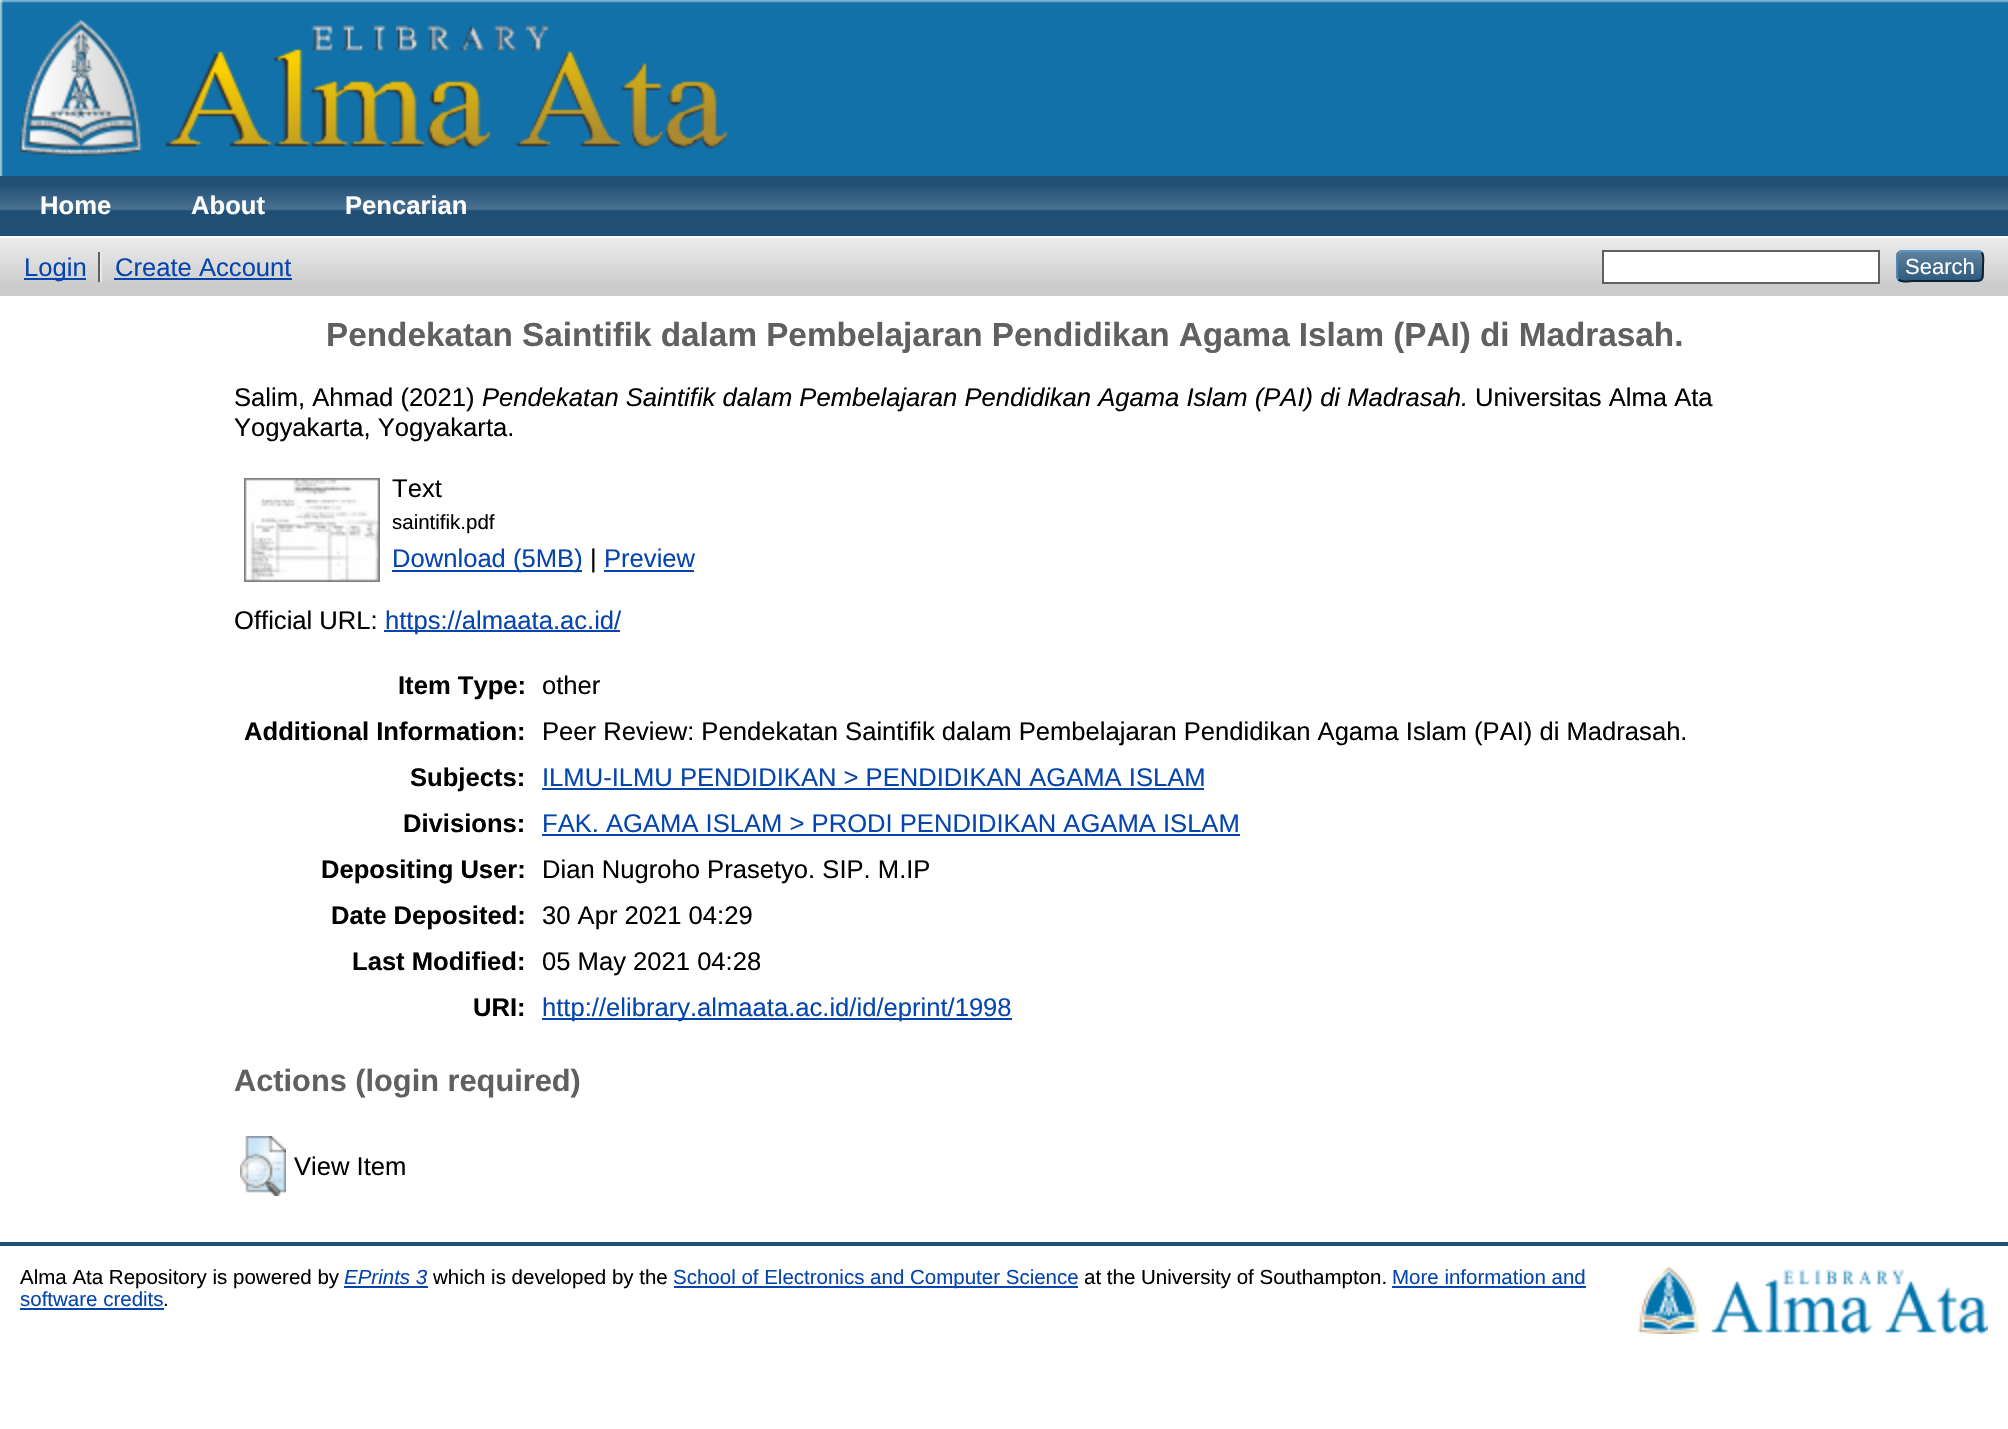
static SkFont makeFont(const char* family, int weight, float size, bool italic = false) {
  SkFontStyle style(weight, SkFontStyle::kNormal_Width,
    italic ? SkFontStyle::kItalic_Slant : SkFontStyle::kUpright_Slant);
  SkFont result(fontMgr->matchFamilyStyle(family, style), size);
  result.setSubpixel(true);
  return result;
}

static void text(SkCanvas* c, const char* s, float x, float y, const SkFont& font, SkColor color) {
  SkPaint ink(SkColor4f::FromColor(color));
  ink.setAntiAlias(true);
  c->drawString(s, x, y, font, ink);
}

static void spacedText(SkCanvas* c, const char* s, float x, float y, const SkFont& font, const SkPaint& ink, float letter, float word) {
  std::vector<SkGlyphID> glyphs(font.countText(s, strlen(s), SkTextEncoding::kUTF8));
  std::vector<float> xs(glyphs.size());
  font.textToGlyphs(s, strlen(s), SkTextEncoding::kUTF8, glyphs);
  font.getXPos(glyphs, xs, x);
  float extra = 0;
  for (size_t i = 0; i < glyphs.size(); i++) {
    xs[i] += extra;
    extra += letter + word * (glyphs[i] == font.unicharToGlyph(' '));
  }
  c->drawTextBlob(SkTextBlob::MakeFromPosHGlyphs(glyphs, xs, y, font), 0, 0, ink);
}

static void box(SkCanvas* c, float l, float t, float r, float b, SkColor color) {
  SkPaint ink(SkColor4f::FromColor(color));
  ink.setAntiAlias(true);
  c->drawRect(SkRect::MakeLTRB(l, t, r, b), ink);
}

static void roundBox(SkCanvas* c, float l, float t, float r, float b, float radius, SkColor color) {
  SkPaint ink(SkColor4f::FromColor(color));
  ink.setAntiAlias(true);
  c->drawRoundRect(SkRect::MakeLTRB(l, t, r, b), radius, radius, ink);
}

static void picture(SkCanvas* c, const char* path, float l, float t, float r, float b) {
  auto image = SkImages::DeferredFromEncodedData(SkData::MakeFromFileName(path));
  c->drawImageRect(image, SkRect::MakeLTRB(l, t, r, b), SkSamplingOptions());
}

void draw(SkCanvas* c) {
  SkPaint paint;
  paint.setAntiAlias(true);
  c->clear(0xffffffff);
  picture(c, "img_01.png", 0, 0, 2008, 176);
  picture(c, "img_02.png", 20, 20, 728, 156);
  box(c, 0, 176, 2008, 236, 0xff204f76);
  picture(c, "img_03.png", 0, 187, 2008, 211);
  SkFont face1 = makeFont("Liberation Sans", 700, 25.6f);
  text(c, "Home", 40, 214, face1, 0xffffffff);
  text(c, "About", 191, 214, face1, 0xffffffff);
  text(c, "Pencarian", 345, 214, face1, 0xffffffff);
  box(c, 0, 238, 2008, 296, 0xffcccccc);
  picture(c, "img_04.png", 0, 238, 2008, 281);
  box(c, 24, 278, 86, 280, 0xff0645ad);
  SkFont face2 = makeFont("Liberation Sans", 400, 25.6f);
  text(c, "Login", 24, 276, face2, 0xff0645ad);
  box(c, 98, 252, 100, 282, 0xff606060);
  text(c, "Create Account", 115, 276, face2, 0xff0645ad);
  box(c, 100, 252, 102, 282, 0xffe8e8e8);
  box(c, 114, 278, 292, 280, 0xff0645ad);
  paint.setColor(0xffffffff);
  c->drawRect(SkRect::MakeLTRB(1603, 251, 1879, 283), paint);
  paint.setStyle(SkPaint::kStroke_Style);
  paint.setStrokeWidth(2);
  paint.setColor(0xff606060);
  c->drawRect(SkRect::MakeLTRB(1603, 251, 1879, 283), paint);
  roundBox(c, 1896, 250, 1984, 282, 6, 0xff1f4f76);
  picture(c, "img_05.png", 1896, 250, 1984, 282);
  paint.setColor(0xff5b97c7);
  c->drawPath(SkPathBuilder().moveTo(1898.5f, 252.5f).lineTo(1901.5f, 251).lineTo(1978.5f, 251).lineTo(1981.5f, 252.5f).detach(), paint);
  paint.setColor(0xff0d2131);
  c->drawPath(SkPathBuilder().moveTo(1981.5f, 252.5f).cubicTo(1984.5f, 255, 1983, 262.5f, 1983, 266).cubicTo(1983, 283, 1983.5f, 281, 1965.5f, 281).lineTo(1914.5f, 281).cubicTo(1913.5f, 281, 1902, 283, 1898.5f, 279.5f).detach(), paint);
  paint.setColor(0xff5287b3);
  c->drawPath(SkPathBuilder().moveTo(1898.5f, 279.5f).cubicTo(1897.5f, 278.5f, 1897, 277.5f, 1897, 276).lineTo(1897, 256).cubicTo(1897, 254.5f, 1897.5f, 253.5f, 1898.5f, 252.5f).detach(), paint);
  SkFont face3 = makeFont("Liberation Sans", 400, 22);
  text(c, "Search", 1905, 274, face3, 0xffffffff);
  SkFont face4 = makeFont("Liberation Sans", 700, 33.3f);
  paint.setStyle(SkPaint::kFill_Style);
  paint.setColor(0xff606060);
  spacedText(c, "Pendekatan Saintifik dalam Pembelajaran Pendidikan Agama Islam (PAI) di Madrasah.", 326, 346, face4, paint, 0, -0.1f);
  text(c, "Salim, Ahmad (2021)", 234, 406, face2, 0xff000000);
  SkFont face5 = makeFont("Liberation Sans", 400, 25.6f, true);
  text(c, "Pendekatan Saintifik dalam Pembelajaran Pendidikan Agama Islam (PAI) di Madrasah.", 482, 406, face5, 0xff000000);
  text(c, "Universitas Alma Ata", 1475, 406, face2, 0xff000000);
  text(c, "Yogyakarta, Yogyakarta.", 234, 436, face2, 0xff000000);
  picture(c, "img_06.png", 244, 478, 380, 582);
  text(c, "Text", 392, 497, face2, 0xff000000);
  SkFont face6 = makeFont("Liberation Sans", 400, 20.5f);
  text(c, "saintifik.pdf", 392, 529, face6, 0xff000000);
  box(c, 392, 570, 582, 572, 0xff0645ad);
  text(c, "Download (5MB)", 392, 567, face2, 0xff0645ad);
  text(c, "|", 590, 567, face2, 0xff000000);
  text(c, "Preview", 604, 567, face2, 0xff0645ad);
  box(c, 604, 570, 694, 572, 0xff0645ad);
  text(c, "Official URL:", 234, 629, face2, 0xff000000);
  box(c, 384, 630, 620, 632, 0xff0645ad);
  text(c, "https://almaata.ac.id/", 385, 629, face2, 0xff0645ad);
  text(c, "Item Type:", 398, 694, face1, 0xff000000);
  text(c, "other", 542, 694, face2, 0xff000000);
  text(c, "Additional Information:", 244, 740, face1, 0xff000000);
  text(c, "Peer Review: Pendekatan Saintifik dalam Pembelajaran Pendidikan Agama Islam (PAI) di Madrasah.", 542, 740, face2, 0xff000000);
  text(c, "Subjects:", 410, 786, face1, 0xff000000);
  text(c, "ILMU-ILMU PENDIDIKAN > PENDIDIKAN AGAMA ISLAM", 542, 786, face2, 0xff0645ad);
  box(c, 542, 788, 1204, 790, 0xff0645ad);
  text(c, "Divisions:", 403, 832, face1, 0xff000000);
  text(c, "FAK. AGAMA ISLAM > PRODI PENDIDIKAN AGAMA ISLAM", 542, 832, face2, 0xff0645ad);
  box(c, 542, 834, 1240, 836, 0xff0645ad);
  text(c, "Depositing User:", 321, 878, face1, 0xff000000);
  text(c, "Dian Nugroho Prasetyo. SIP. M.IP", 542, 878, face2, 0xff000000);
  text(c, "Date Deposited:", 331, 924, face1, 0xff000000);
  text(c, "30 Apr 2021 04:29", 542, 924, face2, 0xff000000);
  text(c, "Last Modified:", 352, 970, face1, 0xff000000);
  text(c, "05 May 2021 04:28", 542, 970, face2, 0xff000000);
  text(c, "URI:", 473, 1016, face1, 0xff000000);
  box(c, 542, 1018, 1012, 1020, 0xff0645ad);
  text(c, "http://elibrary.almaata.ac.id/id/eprint/1998", 542, 1016, face2, 0xff0645ad);
  SkFont face7 = makeFont("Liberation Sans", 700, 30.75f);
  text(c, "Actions (login required)", 234, 1091, face7, 0xff606060);
  picture(c, "img_07.png", 240, 1136, 286, 1196);
  text(c, "View Item", 294, 1175, face2, 0xff000000);
  box(c, 0, 1242, 2008, 1246, 0xff204f76);
  text(c, "Alma Ata Repository is powered by", 20, 1284, face6, 0xff000000);
  SkFont face8 = makeFont("Liberation Sans", 400, 20.5f, true);
  text(c, "EPrints 3", 344, 1284, face8, 0xff0645ad);
  box(c, 344, 1286, 428, 1288, 0xff0645ad);
  text(c, "which is developed by the", 433, 1284, face6, 0xff000000);
  box(c, 674, 1286, 1078, 1288, 0xff0645ad);
  text(c, "School of Electronics and Computer Science", 673, 1284, face6, 0xff0645ad);
  text(c, "at the University of Southampton.", 1084, 1284, face6, 0xff000000);
  text(c, "More information and", 1392, 1284, face6, 0xff0645ad);
  box(c, 1392, 1286, 1586, 1288, 0xff0645ad);
  text(c, "software credits", 20, 1306, face6, 0xff0645ad);
  box(c, 20, 1308, 164, 1310, 0xff0645ad);
  text(c, ".", 163, 1306, face6, 0xff000000);
  picture(c, "img_08.png", 1638, 1267, 1988, 1334);
}
